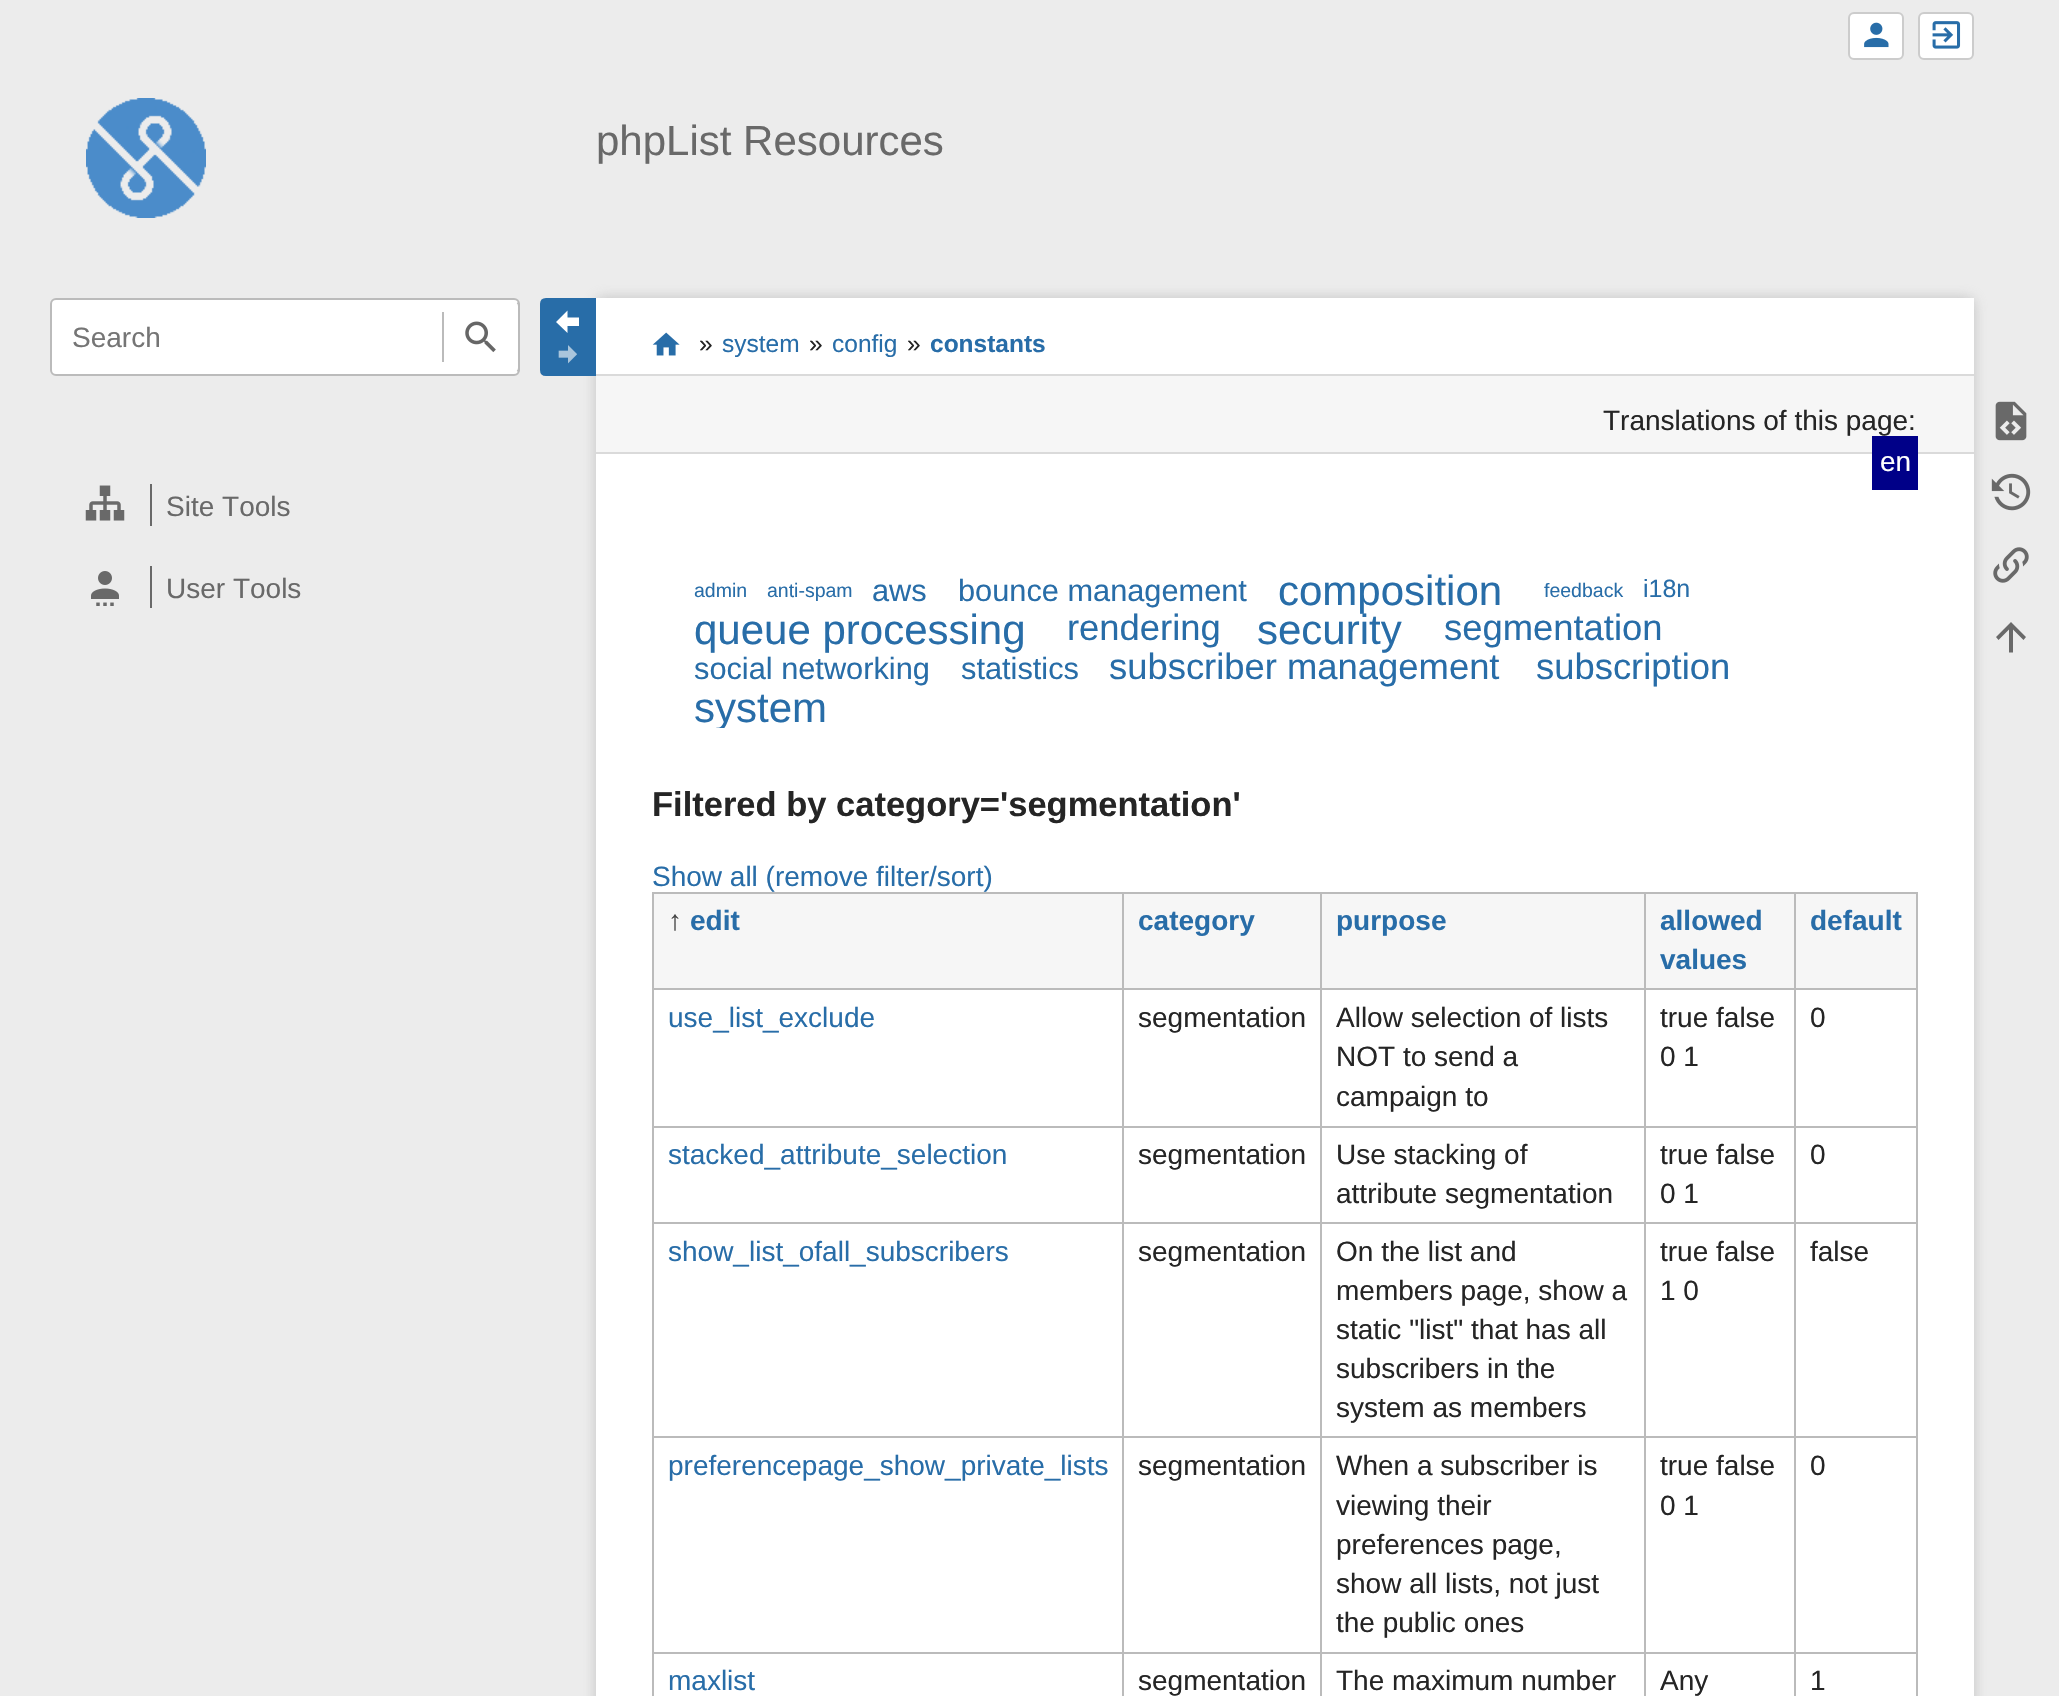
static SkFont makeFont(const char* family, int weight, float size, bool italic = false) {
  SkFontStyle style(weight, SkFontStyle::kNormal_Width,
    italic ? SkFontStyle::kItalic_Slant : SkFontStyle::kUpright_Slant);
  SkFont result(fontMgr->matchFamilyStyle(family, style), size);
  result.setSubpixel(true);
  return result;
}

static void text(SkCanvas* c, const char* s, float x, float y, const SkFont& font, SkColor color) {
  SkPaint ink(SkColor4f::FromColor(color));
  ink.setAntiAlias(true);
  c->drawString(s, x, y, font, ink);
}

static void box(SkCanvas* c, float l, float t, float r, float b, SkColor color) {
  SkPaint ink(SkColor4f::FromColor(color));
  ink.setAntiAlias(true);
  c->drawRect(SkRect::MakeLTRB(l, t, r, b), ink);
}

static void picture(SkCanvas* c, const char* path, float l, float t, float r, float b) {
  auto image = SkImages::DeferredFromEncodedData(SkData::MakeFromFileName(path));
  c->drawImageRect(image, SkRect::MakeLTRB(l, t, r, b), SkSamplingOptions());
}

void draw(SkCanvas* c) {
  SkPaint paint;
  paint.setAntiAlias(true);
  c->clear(0xffececec);
  paint.setColor(0xffffffff);
  c->drawRoundRect(SkRect::MakeLTRB(1849, 13, 1903, 59), 5, 5, paint);
  paint.setStyle(SkPaint::kStroke_Style);
  paint.setStrokeWidth(2);
  paint.setColor(0xffcccccc);
  c->drawRoundRect(SkRect::MakeLTRB(1849, 13, 1903, 59), 5, 5, paint);
  picture(c, "img_01.png", 1864, 22, 1889, 48);
  paint.setStyle(SkPaint::kFill_Style);
  paint.setColor(0xffffffff);
  c->drawRoundRect(SkRect::MakeLTRB(1919, 13, 1973, 59), 5, 5, paint);
  paint.setStyle(SkPaint::kStroke_Style);
  paint.setColor(0xffcccccc);
  c->drawRoundRect(SkRect::MakeLTRB(1919, 13, 1973, 59), 5, 5, paint);
  picture(c, "img_02.png", 1932, 21, 1961, 49);
  picture(c, "img_03.png", 86, 98, 206, 218);
  SkFont face1 = makeFont("Liberation Sans", 400, 42);
  text(c, "phpList Resources", 596, 155, face1, 0xff696969);
  paint.setStyle(SkPaint::kFill_Style);
  paint.setColor(0xffffffff);
  c->drawRoundRect(SkRect::MakeLTRB(51, 299, 519, 375), 5, 5, paint);
  paint.setStyle(SkPaint::kStroke_Style);
  paint.setColor(0xffbbbbbb);
  c->drawRoundRect(SkRect::MakeLTRB(51, 299, 519, 375), 5, 5, paint);
  SkFont face2 = makeFont("Liberation Sans", 400, 28);
  text(c, "Search", 72, 347, face2, 0xff757575);
  c->drawPath(SkPathBuilder().moveTo(517.5f, 302.5f).cubicTo(518.5f, 303.5f, 519, 304.5f, 519, 306).lineTo(519, 368).cubicTo(519, 369.5f, 518.5f, 370.5f, 517.5f, 371.5f).detach(), paint);
  box(c, 442, 312, 444, 362, 0xffbbbbbb);
  picture(c, "img_04.png", 465, 321, 496, 353);
  picture(c, "img_05.png", 85, 485, 125, 521);
  box(c, 150, 484, 152, 526, 0xff696969);
  text(c, "Site Tools", 166, 516, face2, 0xff696969);
  picture(c, "img_06.png", 91, 571, 119, 606);
  box(c, 150, 566, 152, 608, 0xff696969);
  text(c, "User Tools", 166, 598, face2, 0xff696969);
  paint.setStyle(SkPaint::kFill_Style);
  paint.setColor(0x80999999);
  paint.setMaskFilter(SkMaskFilter::MakeBlur(kNormal_SkBlurStyle, 7));
  c->drawRoundRect(SkRect::MakeLTRB(596, 298, 1974, 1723), 6, 6, paint);
  paint.setMaskFilter(nullptr);
  box(c, 596, 454, 1974, 1696, 0xffffffff);
  box(c, 596, 298, 1974, 374, 0xffffffff);
  box(c, 596, 374, 1974, 376, 0xffdadada);
  paint.setColor(0xff286da8);
  c->drawPath(SkPathBuilder().moveTo(546, 299).lineTo(595, 299).lineTo(595, 375).lineTo(546, 375).cubicTo(543, 375, 541, 373, 541, 370).lineTo(541, 304).cubicTo(541, 301, 543, 299, 546, 299).close().detach(), paint);
  paint.setStyle(SkPaint::kStroke_Style);
  c->drawPath(SkPathBuilder().moveTo(546, 299).lineTo(595, 299).lineTo(595, 375).lineTo(546, 375).cubicTo(543, 375, 541, 373, 541, 370).lineTo(541, 304).cubicTo(541, 301, 543, 299, 546, 299).close().detach(), paint);
  paint.setStyle(SkPaint::kFill_Style);
  paint.setColor(0xffffffff);
  c->drawPath(SkPathBuilder().moveTo(579, 317.5f).lineTo(579, 326).lineTo(567.5f, 326).lineTo(567.5f, 333).lineTo(556, 322).lineTo(567.5f, 310.5f).lineTo(567.5f, 317.5f).close().detach(), paint);
  picture(c, "img_07.png", 558, 345, 577, 364);
  picture(c, "img_08.png", 652, 332, 680, 356);
  SkFont face3 = makeFont("Liberation Sans", 400, 24.5f);
  text(c, "»", 699, 352, face3, 0xff252525);
  text(c, "system", 722, 352, face3, 0xff286da8);
  text(c, "»", 809, 352, face3, 0xff252525);
  text(c, "config", 832, 352, face3, 0xff286da8);
  text(c, "»", 907, 352, face3, 0xff252525);
  SkFont face4 = makeFont("Liberation Sans", 700, 24.5f);
  text(c, "constants", 930, 352, face4, 0xff286da8);
  picture(c, "img_09.png", 1995, 401, 2027, 441);
  picture(c, "img_10.png", 1991, 473, 2031, 511);
  picture(c, "img_11.png", 1993, 547, 2029, 583);
  paint.setColor(0xff696969);
  c->drawPath(SkPathBuilder().moveTo(2013, 652.5f).lineTo(2009, 652.5f).lineTo(2009, 629.5f).lineTo(1998.5f, 640).lineTo(1996, 637).lineTo(2011, 622).lineTo(2026, 637).lineTo(2023.5f, 640).lineTo(2013, 629.5f).close().detach(), paint);
  box(c, 596, 376, 1974, 452, 0xfff6f6f6);
  box(c, 596, 452, 1974, 454, 0xffdadada);
  text(c, "Translations of this page:", 1603, 430, face2, 0xff252525);
  box(c, 1872, 436, 1918, 490, 0xff000088);
  text(c, "en", 1880, 471, face2, 0xffffffff);
  SkFont face5 = makeFont("Liberation Sans", 400, 19.5f);
  text(c, "admin", 694, 597, face5, 0xff286da8);
  text(c, "anti-spam", 767, 597, face5, 0xff286da8);
  SkFont face6 = makeFont("Liberation Sans", 400, 30.75f);
  text(c, "aws", 872, 601, face6, 0xff286da8);
  text(c, "bounce management", 958, 601, face6, 0xff286da8);
  text(c, "composition", 1278, 605, face1, 0xff286da8);
  text(c, "feedback", 1544, 597, face5, 0xff286da8);
  SkFont face7 = makeFont("Liberation Sans", 400, 25);
  text(c, "i18n", 1643, 597, face7, 0xff286da8);
  text(c, "queue processing", 694, 644, face1, 0xff286da8);
  SkFont face8 = makeFont("Liberation Sans", 400, 36.4f);
  text(c, "rendering", 1067, 640, face8, 0xff286da8);
  text(c, "security", 1257, 644, face1, 0xff286da8);
  text(c, "segmentation", 1444, 640, face8, 0xff286da8);
  text(c, "social networking", 694, 679, face6, 0xff286da8);
  text(c, "statistics", 961, 679, face6, 0xff286da8);
  text(c, "subscriber management", 1109, 679, face8, 0xff286da8);
  text(c, "subscription", 1536, 679, face8, 0xff286da8);
  c->save();
  c->clipRect(SkRect::MakeLTRB(652, 570, 1918, 728));
  text(c, "system", 694, 722, face1, 0xff286da8);
  c->restore();
  SkFont face9 = makeFont("Liberation Sans", 700, 34.5f);
  text(c, "Filtered by category='segmentation'", 652, 816, face9, 0xff252525);
  text(c, "Show all (remove filter/sort)", 652, 886, face2, 0xff286da8);
  box(c, 652, 892, 1918, 894, 0xffbbbbbb);
  box(c, 1916, 892, 1918, 1696, 0xffbbbbbb);
  box(c, 652, 892, 654, 1696, 0xffbbbbbb);
  box(c, 654, 894, 1122, 988, 0xfff6f6f6);
  SkFont face10 = makeFont("Liberation Sans", 700, 28);
  text(c, "↑", 668, 930, face10, 0xff454545);
  text(c, "edit", 690, 930, face10, 0xff286da8);
  box(c, 1124, 894, 1320, 988, 0xfff6f6f6);
  box(c, 1794, 988, 1918, 990, 0xffbbbbbb);
  box(c, 1794, 1126, 1918, 1128, 0xffbbbbbb);
  box(c, 1794, 1222, 1918, 1224, 0xffbbbbbb);
  box(c, 1794, 1436, 1918, 1438, 0xffbbbbbb);
  box(c, 1794, 1652, 1918, 1654, 0xffbbbbbb);
  box(c, 1794, 1652, 1796, 1696, 0xffbbbbbb);
  box(c, 1644, 1652, 1796, 1654, 0xffbbbbbb);
  box(c, 1794, 1436, 1796, 1654, 0xffbbbbbb);
  box(c, 1644, 1436, 1796, 1438, 0xffbbbbbb);
  box(c, 1794, 1222, 1796, 1438, 0xffbbbbbb);
  box(c, 1644, 1222, 1796, 1224, 0xffbbbbbb);
  box(c, 1794, 1126, 1796, 1224, 0xffbbbbbb);
  box(c, 1644, 1126, 1796, 1128, 0xffbbbbbb);
  box(c, 1794, 988, 1796, 1128, 0xffbbbbbb);
  box(c, 1644, 988, 1796, 990, 0xffbbbbbb);
  box(c, 1644, 1652, 1646, 1696, 0xffbbbbbb);
  box(c, 1320, 1652, 1646, 1654, 0xffbbbbbb);
  box(c, 1644, 1436, 1646, 1654, 0xffbbbbbb);
  box(c, 1320, 1436, 1646, 1438, 0xffbbbbbb);
  box(c, 1644, 1222, 1646, 1438, 0xffbbbbbb);
  box(c, 1320, 1222, 1646, 1224, 0xffbbbbbb);
  box(c, 1644, 1126, 1646, 1224, 0xffbbbbbb);
  box(c, 1320, 1126, 1646, 1128, 0xffbbbbbb);
  box(c, 1644, 988, 1646, 1128, 0xffbbbbbb);
  box(c, 1320, 988, 1646, 990, 0xffbbbbbb);
  box(c, 1320, 1652, 1322, 1696, 0xffbbbbbb);
  box(c, 1122, 1652, 1322, 1654, 0xffbbbbbb);
  box(c, 1320, 1436, 1322, 1654, 0xffbbbbbb);
  box(c, 1122, 1436, 1322, 1438, 0xffbbbbbb);
  box(c, 1320, 1222, 1322, 1438, 0xffbbbbbb);
  box(c, 1122, 1222, 1322, 1224, 0xffbbbbbb);
  box(c, 1320, 1126, 1322, 1224, 0xffbbbbbb);
  box(c, 1122, 1126, 1322, 1128, 0xffbbbbbb);
  box(c, 1320, 988, 1322, 1128, 0xffbbbbbb);
  box(c, 1122, 988, 1322, 990, 0xffbbbbbb);
  box(c, 1122, 1652, 1124, 1696, 0xffbbbbbb);
  box(c, 652, 1652, 1124, 1654, 0xffbbbbbb);
  box(c, 1122, 1436, 1124, 1654, 0xffbbbbbb);
  box(c, 652, 1436, 1124, 1438, 0xffbbbbbb);
  box(c, 1122, 1222, 1124, 1438, 0xffbbbbbb);
  box(c, 652, 1222, 1124, 1224, 0xffbbbbbb);
  box(c, 1122, 1126, 1124, 1224, 0xffbbbbbb);
  box(c, 652, 1126, 1124, 1128, 0xffbbbbbb);
  box(c, 1122, 988, 1124, 1128, 0xffbbbbbb);
  box(c, 652, 988, 1124, 990, 0xffbbbbbb);
  box(c, 1122, 892, 1124, 990, 0xffbbbbbb);
  text(c, "category", 1138, 930, face10, 0xff286da8);
  box(c, 1322, 894, 1644, 988, 0xfff6f6f6);
  box(c, 1320, 892, 1322, 990, 0xffbbbbbb);
  text(c, "purpose", 1336, 930, face10, 0xff286da8);
  box(c, 1646, 894, 1794, 988, 0xfff6f6f6);
  box(c, 1644, 892, 1646, 990, 0xffbbbbbb);
  text(c, "allowed", 1660, 930, face10, 0xff286da8);
  text(c, "values", 1660, 969, face10, 0xff286da8);
  box(c, 1796, 894, 1916, 988, 0xfff6f6f6);
  box(c, 1794, 892, 1796, 990, 0xffbbbbbb);
  text(c, "default", 1810, 930, face10, 0xff286da8);
  text(c, "use_list_exclude", 668, 1027, face2, 0xff286da8);
  text(c, "segmentation", 1138, 1027, face2, 0xff252525);
  text(c, "Allow selection of lists", 1336, 1027, face2, 0xff252525);
  text(c, "NOT to send a", 1336, 1066, face2, 0xff252525);
  text(c, "campaign to", 1336, 1106, face2, 0xff252525);
  text(c, "true false", 1660, 1027, face2, 0xff252525);
  text(c, "0 1", 1660, 1066, face2, 0xff252525);
  text(c, "0", 1810, 1027, face2, 0xff252525);
  text(c, "stacked_attribute_selection", 668, 1164, face2, 0xff286da8);
  text(c, "segmentation", 1138, 1164, face2, 0xff252525);
  text(c, "Use stacking of", 1336, 1164, face2, 0xff252525);
  text(c, "attribute segmentation", 1336, 1203, face2, 0xff252525);
  text(c, "true false", 1660, 1164, face2, 0xff252525);
  text(c, "0 1", 1660, 1203, face2, 0xff252525);
  text(c, "0", 1810, 1164, face2, 0xff252525);
  text(c, "show_list_ofall_subscribers", 668, 1261, face2, 0xff286da8);
  text(c, "segmentation", 1138, 1261, face2, 0xff252525);
  text(c, "On the list and", 1336, 1261, face2, 0xff252525);
  text(c, "members page, show a", 1336, 1300, face2, 0xff252525);
  text(c, "static \"list\" that has all", 1336, 1339, face2, 0xff252525);
  text(c, "subscribers in the", 1336, 1378, face2, 0xff252525);
  text(c, "system as members", 1336, 1417, face2, 0xff252525);
  text(c, "true false", 1660, 1261, face2, 0xff252525);
  text(c, "1 0", 1660, 1300, face2, 0xff252525);
  text(c, "false", 1810, 1261, face2, 0xff252525);
  text(c, "preferencepage_show_private_lists", 668, 1475, face2, 0xff286da8);
  text(c, "segmentation", 1138, 1475, face2, 0xff252525);
  text(c, "When a subscriber is", 1336, 1475, face2, 0xff252525);
  text(c, "viewing their", 1336, 1515, face2, 0xff252525);
  text(c, "preferences page,", 1336, 1554, face2, 0xff252525);
  text(c, "show all lists, not just", 1336, 1593, face2, 0xff252525);
  text(c, "the public ones", 1336, 1632, face2, 0xff252525);
  text(c, "true false", 1660, 1475, face2, 0xff252525);
  text(c, "0 1", 1660, 1515, face2, 0xff252525);
  text(c, "0", 1810, 1475, face2, 0xff252525);
  text(c, "maxlist", 668, 1690, face2, 0xff286da8);
  text(c, "segmentation", 1138, 1690, face2, 0xff252525);
  text(c, "The maximum number", 1336, 1690, face2, 0xff252525);
  text(c, "Any", 1660, 1690, face2, 0xff252525);
  text(c, "1", 1810, 1690, face2, 0xff252525);
}
